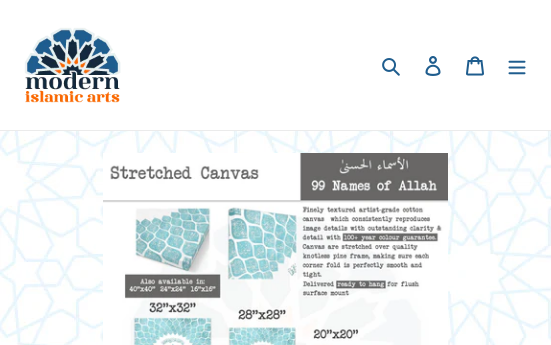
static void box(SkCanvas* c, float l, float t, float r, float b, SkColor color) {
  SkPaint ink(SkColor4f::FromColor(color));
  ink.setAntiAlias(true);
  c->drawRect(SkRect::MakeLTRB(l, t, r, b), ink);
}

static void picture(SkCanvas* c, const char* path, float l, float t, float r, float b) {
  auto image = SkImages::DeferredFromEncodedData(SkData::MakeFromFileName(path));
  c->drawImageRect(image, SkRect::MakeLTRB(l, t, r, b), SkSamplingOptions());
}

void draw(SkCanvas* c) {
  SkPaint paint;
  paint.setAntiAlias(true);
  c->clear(0xffffffff);
  picture(c, "img_01.png", 0, 131, 551, 345);
  box(c, 0, 130, 551, 131, 0xffebebeb);
  picture(c, "img_02.png", 24, 27, 121, 103);
  picture(c, "img_03.png", 382, 58, 400, 76);
  picture(c, "img_04.png", 425, 56, 441, 76);
  picture(c, "img_05.png", 466, 56, 484, 76);
  picture(c, "img_06.png", 508, 60, 526, 75);
  picture(c, "img_07.png", 103, 153, 448, 345);
}
